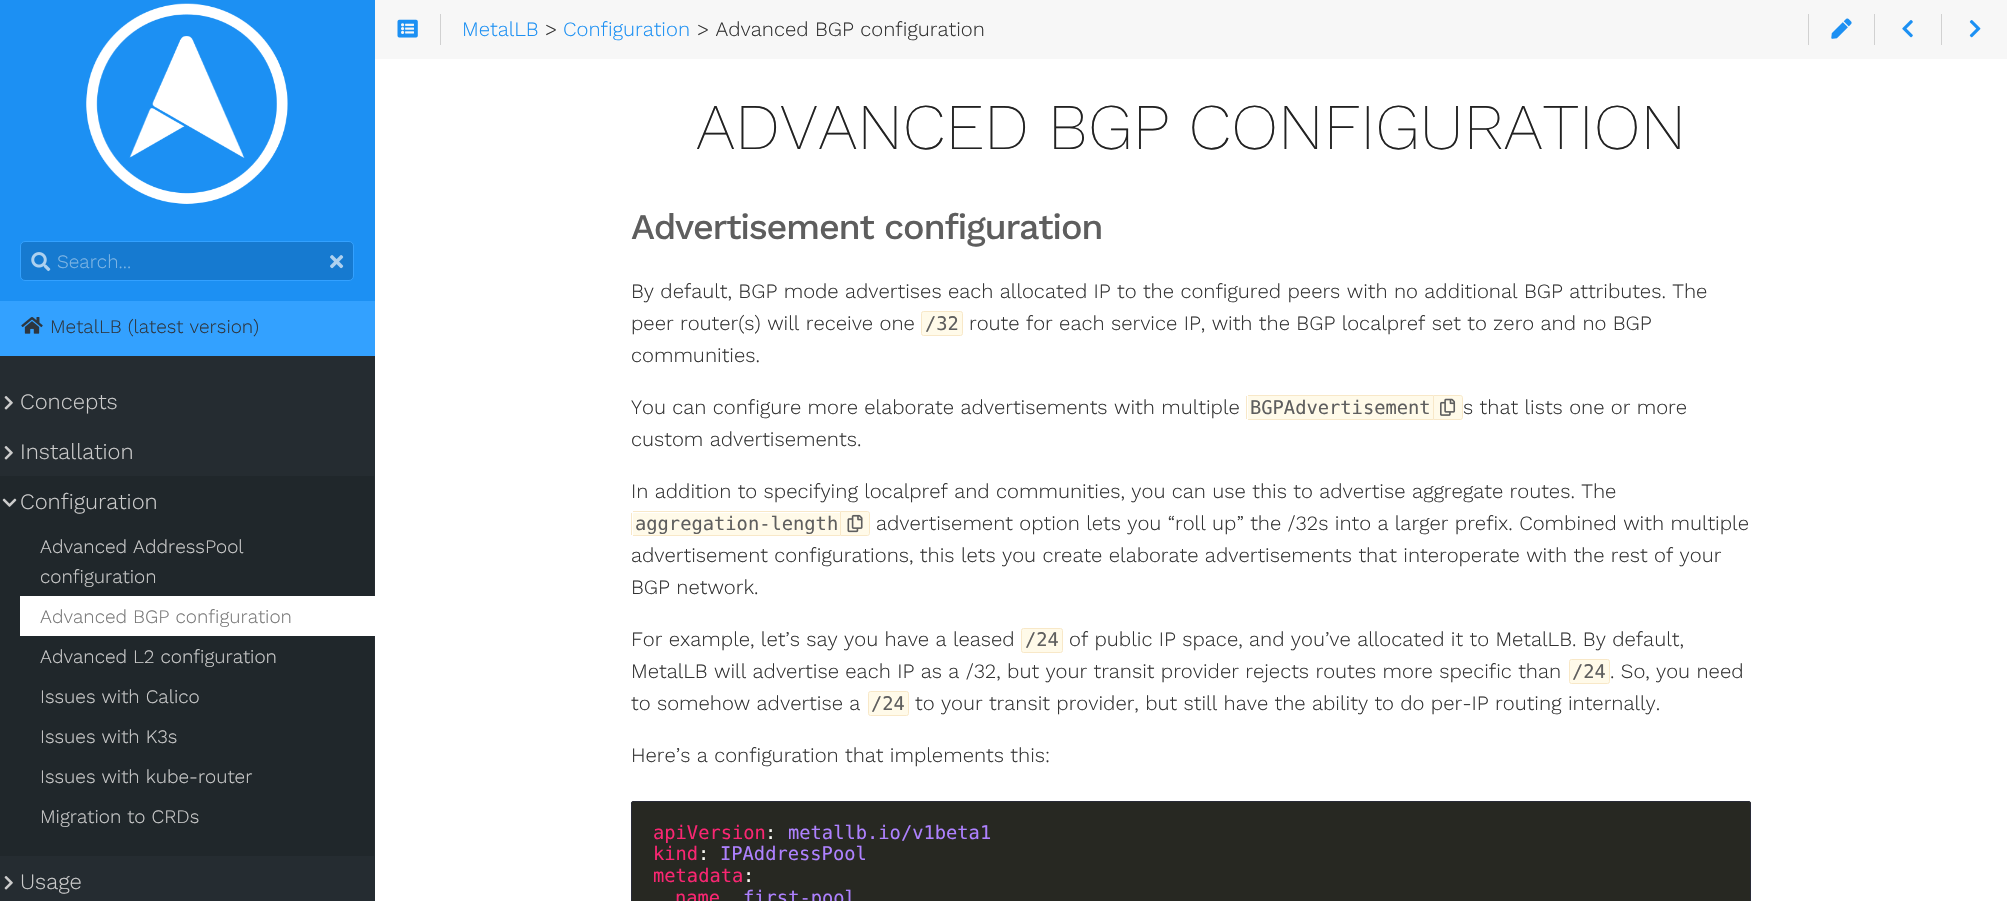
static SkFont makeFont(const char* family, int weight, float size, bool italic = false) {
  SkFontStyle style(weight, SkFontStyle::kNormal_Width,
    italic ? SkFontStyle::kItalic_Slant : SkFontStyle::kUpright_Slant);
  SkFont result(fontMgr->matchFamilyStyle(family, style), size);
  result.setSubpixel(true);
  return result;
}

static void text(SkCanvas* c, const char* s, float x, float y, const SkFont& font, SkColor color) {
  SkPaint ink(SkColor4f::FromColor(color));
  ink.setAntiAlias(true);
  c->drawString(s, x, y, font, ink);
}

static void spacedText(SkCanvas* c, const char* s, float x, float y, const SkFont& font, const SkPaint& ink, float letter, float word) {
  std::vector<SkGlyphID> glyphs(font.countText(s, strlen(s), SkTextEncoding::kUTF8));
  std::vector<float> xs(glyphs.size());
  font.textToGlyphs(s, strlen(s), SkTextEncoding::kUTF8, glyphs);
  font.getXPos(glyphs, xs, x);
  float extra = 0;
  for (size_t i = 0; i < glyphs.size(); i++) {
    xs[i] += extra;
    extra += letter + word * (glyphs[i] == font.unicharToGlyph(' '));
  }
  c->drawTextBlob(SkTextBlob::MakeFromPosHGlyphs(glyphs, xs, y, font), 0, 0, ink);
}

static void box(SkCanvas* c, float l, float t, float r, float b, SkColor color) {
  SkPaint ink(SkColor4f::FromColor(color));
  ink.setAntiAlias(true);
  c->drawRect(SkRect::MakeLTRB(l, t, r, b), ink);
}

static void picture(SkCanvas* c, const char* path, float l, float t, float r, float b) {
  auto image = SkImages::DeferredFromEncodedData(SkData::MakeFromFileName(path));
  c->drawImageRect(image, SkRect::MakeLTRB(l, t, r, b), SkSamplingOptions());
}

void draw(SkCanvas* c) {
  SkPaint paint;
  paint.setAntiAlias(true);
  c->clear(0xffffffff);
  box(c, 0, 356, 375, 901, 0xff252c31);
  box(c, 0, 0, 375, 301, 0xff1c90f3);
  picture(c, "img_01.png", 86, 3, 288, 204);
  paint.setColor(0xff167ad0);
  c->drawRoundRect(SkRect::MakeLTRB(20.5f, 241.5f, 353.5f, 280.5f), 4.5f, 4.5f, paint);
  paint.setStyle(SkPaint::kStroke_Style);
  paint.setStrokeWidth(1);
  paint.setColor(0xff33a1ff);
  c->drawRoundRect(SkRect::MakeLTRB(20.5f, 241.5f, 353.5f, 280.5f), 4.5f, 4.5f, paint);
  picture(c, "img_02.png", 31, 252, 51, 272);
  SkFont face1 = makeFont("Work Sans", 300, 19);
  text(c, "Search...", 57, 268, face1, 0xff7fb6e5);
  picture(c, "img_03.png", 330, 255, 344, 269);
  box(c, 0, 301, 375, 356, 0xff33a1ff);
  picture(c, "img_04.png", 21, 317, 43, 334);
  text(c, "MetalLB (latest version)", 50, 333, face1, 0xff2d363f);
  picture(c, "img_05.png", 4, 396, 13, 410);
  SkFont face2 = makeFont("Work Sans", 300, 22);
  text(c, "Concepts", 20, 409, face2, 0xffcccccc);
  picture(c, "img_05.png", 4, 446, 13, 460);
  text(c, "Installation", 20, 459, face2, 0xffcccccc);
  box(c, 0, 476, 374, 856, 0xff20272b);
  picture(c, "img_06.png", 2, 498, 17, 507);
  text(c, "Configuration", 20, 509, face2, 0xffcccccc);
  text(c, "Advanced AddressPool", 40, 553, face1, 0xffcccccc);
  text(c, "configuration", 40, 583, face1, 0xffcccccc);
  box(c, 20, 596, 375, 636, 0xffffffff);
  text(c, "Advanced BGP configuration", 40, 623, face1, 0xff777777);
  text(c, "Advanced L2 configuration", 40, 663, face1, 0xffcccccc);
  text(c, "Issues with Calico", 40, 703, face1, 0xffcccccc);
  text(c, "Issues with K3s", 40, 743, face1, 0xffcccccc);
  text(c, "Issues with kube-router", 40, 783, face1, 0xffcccccc);
  text(c, "Migration to CRDs", 40, 823, face1, 0xffcccccc);
  picture(c, "img_05.png", 4, 876, 13, 890);
  text(c, "Usage", 20, 889, face2, 0xffcccccc);
  box(c, 375, 0, 2007, 59, 0xfff7f7f7);
  box(c, 440, 14, 441, 45, 0xffd1d1d1);
  picture(c, "img_07.png", 397, 19, 418, 38);
  SkFont face3 = makeFont("Work Sans", 300, 20.3f);
  text(c, "MetalLB", 462, 36, face3, 0xff1c90f3);
  text(c, ">", 545, 36, face3, 0xff323232);
  text(c, "Configuration", 563, 36, face3, 0xff1c90f3);
  text(c, "> Advanced BGP configuration", 697, 36, face3, 0xff323232);
  box(c, 1808, 14, 1809, 45, 0xffd1d1d1);
  picture(c, "img_08.png", 1831, 18, 1852, 39);
  box(c, 1874, 14, 1875, 45, 0xffd1d1d1);
  picture(c, "img_09.png", 1902, 20, 1913, 38);
  box(c, 1941, 14, 1942, 45, 0xffd1d1d1);
  picture(c, "img_10.png", 1969, 20, 1981, 38);
  SkFont face4 = makeFont("Work Sans", 200, 65);
  text(c, "ADVANCED BGP CONFIGURATION", 696, 149, face4, 0xff222222);
  SkFont face5 = makeFont("Work Sans", 500, 36);
  paint.setStyle(SkPaint::kFill_Style);
  paint.setColor(0xff5e5e5e);
  spacedText(c, "Advertisement configuration", 631, 239, face5, paint, -1.25f, 0);
  text(c, "By default, BGP mode advertises each allocated IP to the configured peers with no additional BGP attributes. The", 631, 298, face3, 0xff323232);
  text(c, "peer router(s) will receive one", 631, 330, face3, 0xff323232);
  paint.setColor(0xfffffae9);
  c->drawRoundRect(SkRect::MakeLTRB(921.5f, 311.5f, 962.5f, 335.5f), 2, 2, paint);
  paint.setStyle(SkPaint::kStroke_Style);
  paint.setColor(0xfff8e8c8);
  c->drawRoundRect(SkRect::MakeLTRB(921.5f, 311.5f, 962.5f, 335.5f), 2, 2, paint);
  SkFont face6 = makeFont("DejaVu Sans Mono", 400, 18.75f);
  text(c, "/32", 925, 330, face6, 0xff5e5e5e);
  text(c, "route for each service IP, with the BGP localpref set to zero and no BGP", 969, 330, face3, 0xff323232);
  text(c, "communities.", 631, 362, face3, 0xff323232);
  text(c, "You can configure more elaborate advertisements with multiple", 631, 414, face3, 0xff323232);
  paint.setStyle(SkPaint::kFill_Style);
  paint.setColor(0xfffffae9);
  c->drawPath(SkPathBuilder().moveTo(1249, 396).lineTo(1433, 396).lineTo(1433, 419).lineTo(1249, 419).cubicTo(1248.5f, 419, 1248, 418.5f, 1248, 418).lineTo(1248, 397).cubicTo(1248, 396.5f, 1248.5f, 396, 1249, 396).close().detach(), paint);
  text(c, "BGPAdvertisement", 1250, 414, face6, 0xff5e5e5e);
  box(c, 1248, 395, 1433, 396, 0xfff8e8c8);
  box(c, 1248, 419, 1433, 420, 0xfff8e8c8);
  box(c, 1246, 396, 1247, 419, 0xfff8e8c8);
  c->drawPath(SkPathBuilder().moveTo(1433.5f, 395.5f).lineTo(1460.5f, 395.5f).cubicTo(1461.5f, 395.5f, 1462.5f, 396.5f, 1462.5f, 397.5f).lineTo(1462.5f, 417.5f).cubicTo(1462.5f, 418.5f, 1461.5f, 419.5f, 1460.5f, 419.5f).lineTo(1433.5f, 419.5f).close().detach(), paint);
  paint.setStyle(SkPaint::kStroke_Style);
  paint.setColor(0xfff8e8c8);
  c->drawPath(SkPathBuilder().moveTo(1433.5f, 395.5f).lineTo(1460.5f, 395.5f).cubicTo(1461.5f, 395.5f, 1462.5f, 396.5f, 1462.5f, 397.5f).lineTo(1462.5f, 417.5f).cubicTo(1462.5f, 418.5f, 1461.5f, 419.5f, 1460.5f, 419.5f).lineTo(1433.5f, 419.5f).close().detach(), paint);
  picture(c, "img_11.png", 1440, 398, 1456, 416);
  text(c, "s that lists one or more", 1463, 414, face3, 0xff323232);
  text(c, "custom advertisements.", 631, 446, face3, 0xff323232);
  text(c, "In addition to specifying localpref and communities, you can use this to advertise aggregate routes. The", 631, 498, face3, 0xff323232);
  paint.setStyle(SkPaint::kFill_Style);
  paint.setColor(0xfffffae9);
  c->drawPath(SkPathBuilder().moveTo(634, 513).lineTo(840, 513).lineTo(840, 535).lineTo(634, 535).cubicTo(633.5f, 535, 633, 534.5f, 633, 534).lineTo(633, 514).cubicTo(633, 513.5f, 633.5f, 513, 634, 513).close().detach(), paint);
  text(c, "aggregation-length", 635, 530, face6, 0xff5e5e5e);
  box(c, 633, 511, 840, 512, 0xfff8e8c8);
  box(c, 633, 535, 840, 536, 0xfff8e8c8);
  box(c, 631, 513, 632, 535, 0xfff8e8c8);
  c->drawPath(SkPathBuilder().moveTo(840.5f, 511.5f).lineTo(867.5f, 511.5f).cubicTo(868.5f, 511.5f, 869.5f, 512.5f, 869.5f, 513.5f).lineTo(869.5f, 533.5f).cubicTo(869.5f, 534.5f, 868.5f, 535.5f, 867.5f, 535.5f).lineTo(840.5f, 535.5f).close().detach(), paint);
  paint.setStyle(SkPaint::kStroke_Style);
  paint.setColor(0xfff8e8c8);
  c->drawPath(SkPathBuilder().moveTo(840.5f, 511.5f).lineTo(867.5f, 511.5f).cubicTo(868.5f, 511.5f, 869.5f, 512.5f, 869.5f, 513.5f).lineTo(869.5f, 533.5f).cubicTo(869.5f, 534.5f, 868.5f, 535.5f, 867.5f, 535.5f).lineTo(840.5f, 535.5f).close().detach(), paint);
  picture(c, "img_12.png", 847, 514, 863, 533);
  text(c, "advertisement option lets you “roll up” the /32s into a larger prefix. Combined with multiple", 876, 530, face3, 0xff323232);
  text(c, "advertisement configurations, this lets you create elaborate advertisements that interoperate with the rest of your", 631, 562, face3, 0xff323232);
  text(c, "BGP network.", 631, 594, face3, 0xff323232);
  text(c, "For example, let’s say you have a leased", 631, 646, face3, 0xff323232);
  paint.setStyle(SkPaint::kFill_Style);
  paint.setColor(0xfffffae9);
  c->drawRoundRect(SkRect::MakeLTRB(1021.5f, 628.5f, 1062.5f, 652.5f), 2, 2, paint);
  paint.setStyle(SkPaint::kStroke_Style);
  paint.setColor(0xfff8e8c8);
  c->drawRoundRect(SkRect::MakeLTRB(1021.5f, 628.5f, 1062.5f, 652.5f), 2, 2, paint);
  text(c, "/24", 1025, 646, face6, 0xff5e5e5e);
  text(c, "of public IP space, and you’ve allocated it to MetalLB. By default,", 1069, 646, face3, 0xff323232);
  text(c, "MetalLB will advertise each IP as a /32, but your transit provider rejects routes more specific than", 631, 678, face3, 0xff323232);
  paint.setStyle(SkPaint::kFill_Style);
  paint.setColor(0xfffffae9);
  c->drawRoundRect(SkRect::MakeLTRB(1569.5f, 659.5f, 1609.5f, 683.5f), 2, 2, paint);
  paint.setStyle(SkPaint::kStroke_Style);
  paint.setColor(0xfff8e8c8);
  c->drawRoundRect(SkRect::MakeLTRB(1569.5f, 659.5f, 1609.5f, 683.5f), 2, 2, paint);
  text(c, "/24", 1572, 678, face6, 0xff5e5e5e);
  text(c, ". So, you need", 1610, 678, face3, 0xff323232);
  text(c, "to somehow advertise a", 631, 710, face3, 0xff323232);
  paint.setStyle(SkPaint::kFill_Style);
  paint.setColor(0xfffffae9);
  c->drawRoundRect(SkRect::MakeLTRB(868.5f, 691.5f, 908.5f, 715.5f), 2, 2, paint);
  paint.setStyle(SkPaint::kStroke_Style);
  paint.setColor(0xfff8e8c8);
  c->drawRoundRect(SkRect::MakeLTRB(868.5f, 691.5f, 908.5f, 715.5f), 2, 2, paint);
  text(c, "/24", 871, 710, face6, 0xff5e5e5e);
  text(c, "to your transit provider, but still have the ability to do per-IP routing internally.", 915, 710, face3, 0xff323232);
  text(c, "Here’s a configuration that implements this:", 631, 762, face3, 0xff323232);
  paint.setStyle(SkPaint::kFill_Style);
  paint.setColor(0xff272822);
  c->drawPath(SkPathBuilder().moveTo(633.5f, 801).lineTo(1748.5f, 801).cubicTo(1750, 801, 1751, 802, 1751, 803.5f).lineTo(1751, 901).lineTo(631, 901).lineTo(631, 803.5f).cubicTo(631, 802, 632, 801, 633.5f, 801).close().detach(), paint);
  paint.setStyle(SkPaint::kStroke_Style);
  paint.setColor(0xff282a36);
  c->drawRoundRect(SkRect::MakeLTRB(631.5f, 801.5f, 1750.5f, 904.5f), 2, 2, paint);
  text(c, "apiVersion", 653, 839, face6, 0xfff92672);
  text(c, ":", 765, 839, face6, 0xfff8f8f2);
  text(c, "metallb.io/v1beta1", 788, 839, face6, 0xffae81ff);
  text(c, "kind", 653, 860, face6, 0xfff92672);
  text(c, ":", 698, 860, face6, 0xfff8f8f2);
  text(c, "IPAddressPool", 720, 860, face6, 0xffae81ff);
  text(c, "metadata", 653, 882, face6, 0xfff92672);
  text(c, ":", 743, 882, face6, 0xfff8f8f2);
  text(c, "name", 675, 904, face6, 0xfff92672);
  text(c, "first-pool", 743, 904, face6, 0xffae81ff);
}
